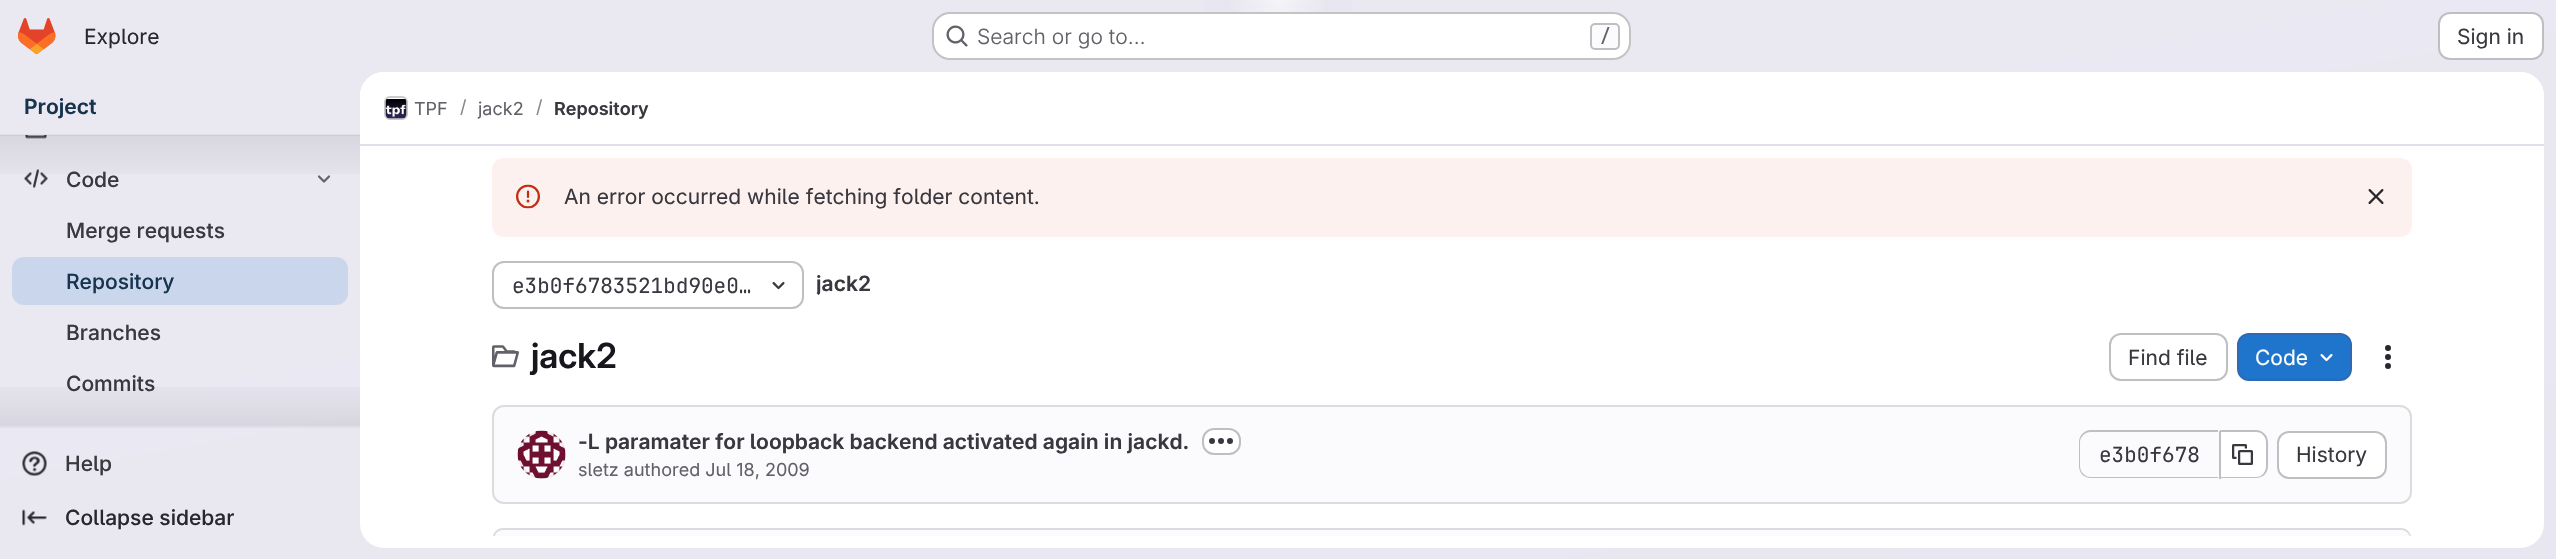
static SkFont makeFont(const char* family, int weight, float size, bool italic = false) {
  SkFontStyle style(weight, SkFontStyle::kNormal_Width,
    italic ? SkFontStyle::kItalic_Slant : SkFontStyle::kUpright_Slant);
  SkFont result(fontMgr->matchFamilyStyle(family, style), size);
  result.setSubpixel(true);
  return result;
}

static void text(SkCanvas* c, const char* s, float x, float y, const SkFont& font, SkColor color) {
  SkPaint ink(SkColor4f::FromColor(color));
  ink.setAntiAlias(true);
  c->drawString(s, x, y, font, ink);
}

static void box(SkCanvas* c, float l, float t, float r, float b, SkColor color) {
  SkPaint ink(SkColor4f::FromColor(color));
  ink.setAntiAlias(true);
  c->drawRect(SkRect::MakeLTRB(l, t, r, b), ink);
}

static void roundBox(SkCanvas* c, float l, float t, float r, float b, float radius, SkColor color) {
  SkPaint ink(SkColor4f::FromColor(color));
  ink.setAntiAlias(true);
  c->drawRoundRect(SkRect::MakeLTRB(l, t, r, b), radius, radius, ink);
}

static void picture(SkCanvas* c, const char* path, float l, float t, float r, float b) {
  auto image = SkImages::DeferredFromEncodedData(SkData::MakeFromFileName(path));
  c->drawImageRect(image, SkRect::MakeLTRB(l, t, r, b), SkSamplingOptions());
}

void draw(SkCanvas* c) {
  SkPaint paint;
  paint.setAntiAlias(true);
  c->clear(0xffffffff);
  {
    const SkColor colors[] = {0xffe8e6f0, 0xffeae9f2};
    const float stops[] = {0, 0.7f};
    const SkPoint ends[] = {{1364, 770}, {1192, -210}};
    paint.setShader(SkGradientShader::MakeLinear(ends, colors, stops, 2, SkTileMode::kClamp));
    paint.setAlpha(255);
  }
  c->drawRect(SkRect::MakeLTRB(0, 0, 2556, 559), paint);
  {
    const SkColor colors[] = {0xffe4e2ed, 0x00e4e2ed};
    const float stops[] = {0, 0.08f};
    SkMatrix m = SkMatrix::Translate(1278, 0).preScale(1278, 560);
    paint.setShader(SkGradientShader::MakeRadial({0, 0}, 1, colors, stops, 2, SkTileMode::kClamp, 0, &m));
    paint.setAlpha(255);
  }
  c->drawRect(SkRect::MakeLTRB(1204, 0, 1352, 12), paint);
  {
    const SkColor colors[] = {0xffe4e2ec, 0x00e4e2ec};
    const float stops[] = {0, 0.06f};
    SkMatrix m = SkMatrix::Translate(1278, 0).preScale(1278, 560);
    paint.setShader(SkGradientShader::MakeRadial({0, 0}, 1, colors, stops, 2, SkTileMode::kClamp, 0, &m));
    paint.setAlpha(255);
  }
  c->drawRect(SkRect::MakeLTRB(1244, 4, 1309, 8), paint);
  {
    const SkColor colors[] = {0x99ffffff, 0x00ffffff};
    const float stops[] = {0, 0.04f};
    paint.setShader(SkGradientShader::MakeRadial({1278, 0}, 1395, colors, stops, 2, SkTileMode::kClamp));
    paint.setAlpha(255);
  }
  c->drawRect(SkRect::MakeLTRB(1231, 0, 1325, 12), paint);
  picture(c, "img_01.png", 18, 18, 56, 54);
  SkFont face1 = makeFont("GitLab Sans", 400, 21);
  text(c, "Explore", 84, 44, face1, 0xff28272d);
  roundBox(c, 932, 12, 1631, 60, 18, 0xffffffff);
  paint.setStyle(SkPaint::kStroke_Style);
  paint.setStrokeWidth(2);
  paint.setShader(nullptr);
  paint.setColor(0x3d050506);
  c->drawRoundRect(SkRect::MakeLTRB(933, 13, 1630, 59), 17, 17, paint);
  picture(c, "img_02.png", 946, 25, 968, 47);
  SkFont face2 = makeFont("GitLab Sans", 300, 21);
  text(c, "Search or go to…", 977, 44, face2, 0xff626168);
  paint.setStyle(SkPaint::kFill_Style);
  paint.setColor(0xfffbfafd);
  c->drawRoundRect(SkRect::MakeLTRB(1591, 24, 1619, 49), 4, 4, paint);
  paint.setStyle(SkPaint::kStroke_Style);
  paint.setColor(0xffbfbfc3);
  c->drawRoundRect(SkRect::MakeLTRB(1591, 24, 1619, 49), 4, 4, paint);
  SkFont face3 = makeFont("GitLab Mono", 500, 18);
  text(c, "/", 1600, 42, face3, 0xff626168);
  paint.setStyle(SkPaint::kFill_Style);
  paint.setColor(0xffffffff);
  c->drawRoundRect(SkRect::MakeLTRB(2439, 13, 2543, 59), 11, 11, paint);
  paint.setStyle(SkPaint::kStroke_Style);
  paint.setColor(0xffbfbfc3);
  c->drawRoundRect(SkRect::MakeLTRB(2439, 13, 2543, 59), 11, 11, paint);
  text(c, "Sign in", 2457, 44, face1, 0xff3a383f);
  SkFont face4 = makeFont("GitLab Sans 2", 600, 21);
  text(c, "Project", 24, 114, face4, 0xff18334e);
  box(c, 0, 134, 360, 136, 0xffe1dfec);
  box(c, 0, 426, 360, 428, 0xffe1dfec);
  picture(c, "img_03.png", 25, 135, 47, 139);
  picture(c, "img_04.png", 24, 169, 48, 188);
  paint.setStyle(SkPaint::kFill_Style);
  {
    const SkColor colors[] = {0x14050506, 0x00050506};
    const float stops[] = {0, 1};
    const SkPoint ends[] = {{180, 135}, {180, 189}};
    paint.setShader(SkGradientShader::MakeLinear(ends, colors, stops, 2, SkTileMode::kClamp));
    paint.setAlpha(255);
  }
  c->drawRect(SkRect::MakeLTRB(0, 135, 360, 174), paint);
  SkFont face5 = makeFont("GitLab Sans", 500, 21);
  text(c, "Code", 66, 187, face5, 0xff3a383f);
  paint.setStyle(SkPaint::kStroke_Style);
  paint.setStrokeWidth(2.2f);
  paint.setStrokeCap(SkPaint::kRound_Cap);
  paint.setStrokeJoin(SkPaint::kRound_Join);
  paint.setShader(nullptr);
  paint.setColor(0xff626168);
  c->drawPath(SkPathBuilder().moveTo(329, 176.5f).lineTo(324, 181.5f).lineTo(319, 176.5f).detach(), paint);
  text(c, "Merge requests", 66, 238, face5, 0xff3a383f);
  roundBox(c, 12, 257, 348, 305, 12, 0xffcad6eb);
  text(c, "Repository", 66, 289, face5, 0xff18334e);
  text(c, "Branches", 66, 340, face5, 0xff3a383f);
  text(c, "Commits", 66, 391, face5, 0xff3a383f);
  paint.setStyle(SkPaint::kFill_Style);
  {
    const SkColor colors[] = {0x00050506, 0x14050506};
    const float stops[] = {0, 1};
    const SkPoint ends[] = {{180, 372}, {180, 426}};
    paint.setShader(SkGradientShader::MakeLinear(ends, colors, stops, 2, SkTileMode::kClamp));
    paint.setAlpha(255);
  }
  c->drawRect(SkRect::MakeLTRB(0, 387, 360, 426), paint);
  picture(c, "img_05.png", 22, 451, 47, 476);
  text(c, "Help", 65, 471, face5, 0xff3a383f);
  picture(c, "img_06.png", 22, 509, 47, 526);
  text(c, "Collapse sidebar", 65, 525, face5, 0xff28272d);
  roundBox(c, 360, 72, 2544, 548, 24, 0xffffffff);
  paint.setShader(nullptr);
  paint.setColor(0xffffffff);
  c->drawPath(SkPathBuilder().moveTo(384, 72).lineTo(2520, 72).cubicTo(2533.5f, 72, 2544, 82.5f, 2544, 96).lineTo(2544, 146).lineTo(360, 146).lineTo(360, 96).cubicTo(360, 82.5f, 370.5f, 72, 384, 72).close().detach(), paint);
  box(c, 360, 144, 2544, 146, 0xffe1dfec);
  paint.setStyle(SkPaint::kStroke_Style);
  paint.setStrokeWidth(2);
  paint.setStrokeCap(SkPaint::kButt_Cap);
  paint.setStrokeJoin(SkPaint::kMiter_Join);
  paint.setColor(0xffdcdcde);
  c->drawRoundRect(SkRect::MakeLTRB(385, 97, 407, 119), 5, 5, paint);
  picture(c, "img_07.png", 385, 99, 407, 119);
  paint.setColor(0x14050506);
  c->drawRoundRect(SkRect::MakeLTRB(385, 97, 407, 119), 5, 5, paint);
  SkFont face6 = makeFont("GitLab Sans", 400, 18);
  text(c, "TPF", 414, 115, face6, 0xff626168);
  text(c, "/", 460, 113, face6, 0xff89888d);
  text(c, "jack2", 478, 115, face6, 0xff626168);
  text(c, "/", 536, 113, face6, 0xff89888d);
  SkFont face7 = makeFont("GitLab Sans 2", 600, 18);
  text(c, "Repository", 554, 115, face7, 0xff3a383f);
  roundBox(c, 492, 158, 2412, 237, 12, 0xfffcf1ef);
  picture(c, "img_08.png", 516, 184, 540, 209);
  text(c, "An error occurred while fetching folder content.", 564, 204, face1, 0xff3a383f);
  picture(c, "img_09.png", 2368, 189, 2384, 204);
  paint.setColor(0xffbfbfc3);
  c->drawRoundRect(SkRect::MakeLTRB(493, 262, 803, 308), 11, 11, paint);
  SkFont face8 = makeFont("GitLab Mono", 400, 21);
  text(c, "e3b0f6783521bd90e0…", 512, 293, face8, 0xff3a383f);
  picture(c, "img_10.png", 772, 282, 785, 290);
  c->save();
  c->clipPath(SkPathBuilder().moveTo(822, 270).lineTo(866, 270).cubicTo(869.5f, 270, 872, 272.5f, 872, 276).lineTo(872, 290).cubicTo(872, 293.5f, 869.5f, 296, 866, 296).lineTo(822, 296).cubicTo(818.5f, 296, 816, 293.5f, 816, 290).lineTo(816, 276).cubicTo(816, 272.5f, 818.5f, 270, 822, 270).close().detach(), true);
  text(c, "jack2", 816, 291, face4, 0xff3a383f);
  c->restore();
  picture(c, "img_11.png", 492, 345, 519, 368);
  SkFont face9 = makeFont("GitLab Sans", 600, 34.5f);
  text(c, "jack2", 531, 368, face9, 0xff18171d);
  c->drawRoundRect(SkRect::MakeLTRB(2110, 334, 2227, 380), 11, 11, paint);
  text(c, "Find file", 2128, 365, face1, 0xff3a383f);
  paint.setStyle(SkPaint::kFill_Style);
  paint.setColor(0xff1f75cb);
  c->drawRoundRect(SkRect::MakeLTRB(2238, 334, 2351, 380), 11, 11, paint);
  paint.setStyle(SkPaint::kStroke_Style);
  paint.setColor(0xff2f68b4);
  c->drawRoundRect(SkRect::MakeLTRB(2238, 334, 2351, 380), 11, 11, paint);
  text(c, "Code", 2255, 365, face1, 0xffffffff);
  picture(c, "img_12.png", 2320, 354, 2333, 362);
  picture(c, "img_13.png", 2385, 345, 2391, 369);
  paint.setStyle(SkPaint::kFill_Style);
  paint.setColor(0xfffbfafd);
  c->drawRoundRect(SkRect::MakeLTRB(493, 406, 2411, 503), 11, 11, paint);
  paint.setStyle(SkPaint::kStroke_Style);
  paint.setColor(0xffdcdcde);
  c->drawRoundRect(SkRect::MakeLTRB(493, 406, 2411, 503), 11, 11, paint);
  picture(c, "img_14.png", 517, 430, 566, 479);
  paint.setColor(0x14050506);
  c->drawCircle(542, 455, 23, paint);
  text(c, "-L paramater for loopback backend activated again in jackd.", 578, 449, face4, 0xff3a383f);
  paint.setStyle(SkPaint::kFill_Style);
  paint.setColor(0xffffffff);
  c->drawRoundRect(SkRect::MakeLTRB(1203, 429, 1240, 454), 11, 11, paint);
  paint.setStyle(SkPaint::kStroke_Style);
  paint.setColor(0xffbfbfc3);
  c->drawRoundRect(SkRect::MakeLTRB(1203, 429, 1240, 454), 11, 11, paint);
  picture(c, "img_15.png", 1209, 438, 1233, 444);
  text(c, "sletz authored Jul 18, 2009", 578, 476, face6, 0xff626168);
  paint.setStyle(SkPaint::kFill_Style);
  c->drawPath(SkPathBuilder(SkPathFillType::kEvenOdd).moveTo(2091, 430).lineTo(2218, 430).lineTo(2218, 478).lineTo(2091, 478).cubicTo(2084, 478, 2079, 473, 2079, 466).lineTo(2079, 442).cubicTo(2079, 436, 2084, 430, 2091, 430).close().moveTo(2091, 432).lineTo(2218, 432).lineTo(2218, 477).lineTo(2091, 477).cubicTo(2085, 477, 2080, 472, 2080, 466).lineTo(2080, 442).cubicTo(2080, 437, 2085, 432, 2091, 432).close().detach(), paint);
  text(c, "e3b0f678", 2099, 462, face8, 0xff3a383f);
  paint.setColor(0xffffffff);
  c->drawPath(SkPathBuilder().moveTo(2220, 432).lineTo(2256, 432).cubicTo(2262, 432, 2267, 437, 2267, 443).lineTo(2267, 466).cubicTo(2267, 472, 2262, 477, 2256, 477).lineTo(2220, 477).close().detach(), paint);
  paint.setColor(0xffbfbfc3);
  c->drawPath(SkPathBuilder(SkPathFillType::kEvenOdd).moveTo(2220, 430).lineTo(2256, 430).cubicTo(2263, 430, 2268, 436, 2268, 442).lineTo(2268, 466).cubicTo(2268, 473, 2263, 478, 2256, 478).lineTo(2220, 478).close().moveTo(2220, 432).lineTo(2256, 432).cubicTo(2262, 432, 2266, 437, 2266, 442).lineTo(2266, 466).cubicTo(2266, 472, 2262, 477, 2256, 477).lineTo(2220, 477).close().detach(), paint);
  box(c, 2219, 431, 2221, 479, 0xffbfbfc3);
  picture(c, "img_16.png", 2232, 444, 2253, 465);
  paint.setColor(0xffffffff);
  c->drawRoundRect(SkRect::MakeLTRB(2278, 432, 2386, 478), 11, 11, paint);
  paint.setStyle(SkPaint::kStroke_Style);
  paint.setColor(0xffbfbfc3);
  c->drawRoundRect(SkRect::MakeLTRB(2278, 432, 2386, 478), 11, 11, paint);
  text(c, "History", 2296, 462, face1, 0xff3a383f);
  c->save();
  c->clipRect(SkRect::MakeLTRB(360, 146, 2544, 536));
  paint.setStyle(SkPaint::kFill_Style);
  paint.setColor(0xffdcdcde);
  c->drawPath(SkPathBuilder().moveTo(504, 528).cubicTo(492, 528, 492, 539, 492, 548).lineTo(494, 548).cubicTo(494, 541, 493, 530, 504, 530).lineTo(2400, 530).cubicTo(2411, 530, 2410, 541, 2410, 548).lineTo(2412, 548).cubicTo(2412, 539, 2412, 528, 2400, 528).close().detach(), paint);
  c->restore();
  c->save();
  c->clipPath(SkPathBuilder().moveTo(505, 530).lineTo(2400, 530).cubicTo(2406, 530, 2411, 535, 2411, 541).lineTo(2411, 769).cubicTo(2411, 775, 2406, 780, 2400, 780).lineTo(505, 780).cubicTo(499, 780, 494, 775, 494, 769).lineTo(494, 541).cubicTo(494, 535, 499, 530, 505, 530).close().detach(), true);
  box(c, 494, 530, 1133, 536, 0xfffbfafd);
  c->restore();
  box(c, 1133, 530, 1772, 536, 0xfffbfafd);
  c->save();
  c->clipPath(SkPathBuilder().moveTo(505, 530).lineTo(2400, 530).cubicTo(2406, 530, 2411, 535, 2411, 541).lineTo(2411, 769).cubicTo(2411, 775, 2406, 780, 2400, 780).lineTo(505, 780).cubicTo(499, 780, 494, 775, 494, 769).lineTo(494, 541).cubicTo(494, 535, 499, 530, 505, 530).close().detach(), true);
  box(c, 1772, 530, 2411, 536, 0xfffbfafd);
  c->restore();
}
